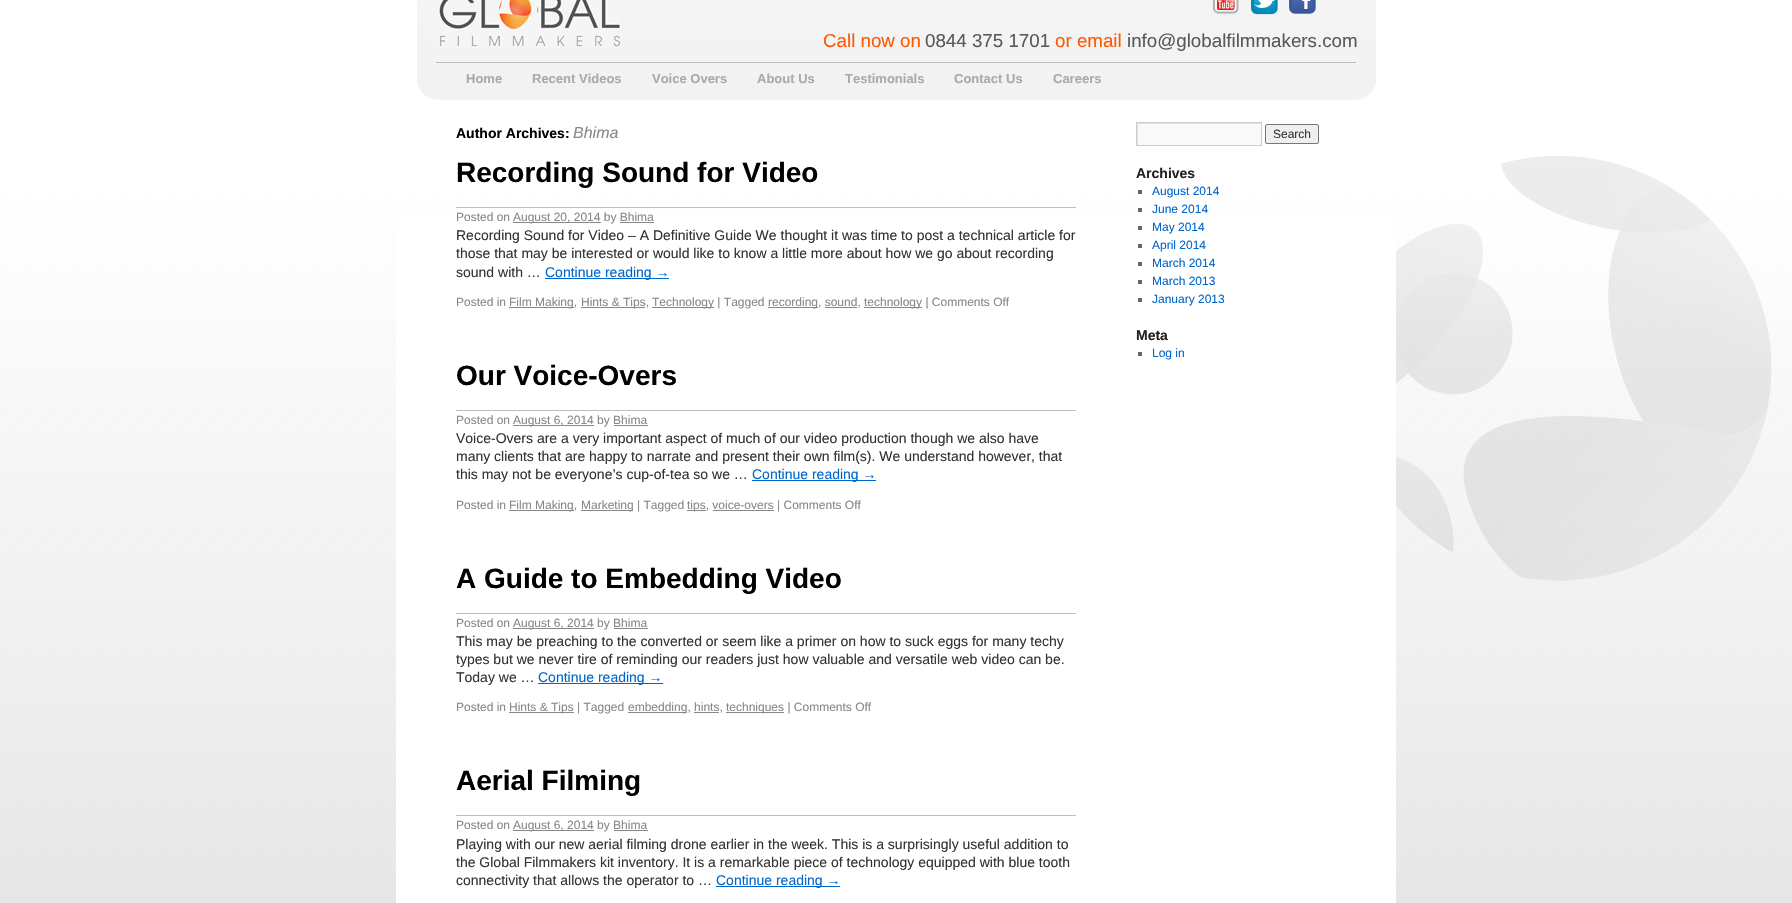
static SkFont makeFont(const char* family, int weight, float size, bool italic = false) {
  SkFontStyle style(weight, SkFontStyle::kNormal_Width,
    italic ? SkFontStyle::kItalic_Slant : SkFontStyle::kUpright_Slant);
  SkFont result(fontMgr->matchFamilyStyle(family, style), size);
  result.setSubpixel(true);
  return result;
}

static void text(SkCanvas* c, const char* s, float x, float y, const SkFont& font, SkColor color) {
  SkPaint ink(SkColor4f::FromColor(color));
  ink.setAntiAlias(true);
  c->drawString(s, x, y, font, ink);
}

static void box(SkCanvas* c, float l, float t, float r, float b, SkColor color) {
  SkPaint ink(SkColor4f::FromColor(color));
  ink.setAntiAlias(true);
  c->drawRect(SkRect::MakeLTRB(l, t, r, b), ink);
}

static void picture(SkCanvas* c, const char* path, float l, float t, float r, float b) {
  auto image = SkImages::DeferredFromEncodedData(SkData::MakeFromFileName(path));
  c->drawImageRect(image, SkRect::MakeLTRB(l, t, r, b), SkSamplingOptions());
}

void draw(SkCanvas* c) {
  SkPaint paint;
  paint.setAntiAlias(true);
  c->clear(0xffffffff);
  picture(c, "img_01.png", 0, 0, 1792, 903);
  box(c, 396, 216, 1396, 903, 0xffffffff);
  picture(c, "img_02.png", 417, 0, 1376, 100);
  picture(c, "img_03.png", 438, 0, 621, 48);
  picture(c, "img_04.png", 1212, 0, 1239, 14);
  picture(c, "img_05.png", 1251, 0, 1278, 15);
  picture(c, "img_06.png", 1289, 0, 1316, 14);
  SkFont face1 = makeFont("Liberation Sans", 400, 18.75f);
  text(c, "Call now on", 823, 47, face1, 0xffff5700);
  text(c, "0844 375 1701", 925, 47, face1, 0xff58595b);
  text(c, "or email", 1055, 47, face1, 0xffff5700);
  text(c, "info@globalfilmmakers.com", 1127, 47, face1, 0xff58595b);
  box(c, 436, 62, 1356, 63, 0xffbebebe);
  SkFont face2 = makeFont("Liberation Sans", 700, 13);
  text(c, "Home", 466, 83, face2, 0xffaaaaaa);
  text(c, "Recent Videos", 532, 83, face2, 0xffaaaaaa);
  text(c, "Voice Overs", 652, 83, face2, 0xffaaaaaa);
  text(c, "About Us", 757, 83, face2, 0xffaaaaaa);
  text(c, "Testimonials", 845, 83, face2, 0xffaaaaaa);
  text(c, "Contact Us", 954, 83, face2, 0xffaaaaaa);
  text(c, "Careers", 1053, 83, face2, 0xffaaaaaa);
  SkFont face3 = makeFont("Liberation Sans", 700, 14);
  text(c, "Author Archives:", 456, 138, face3, 0xff000000);
  SkFont face4 = makeFont("Liberation Sans", 400, 16, true);
  text(c, "Bhima", 573, 138, face4, 0xff888888);
  box(c, 456, 207, 1076, 208, 0xffbebebe);
  SkFont face5 = makeFont("Liberation Sans", 700, 28);
  text(c, "Recording Sound for Video", 456, 182, face5, 0xff000000);
  SkFont face6 = makeFont("Liberation Sans", 400, 12);
  text(c, "Posted on", 456, 221, face6, 0xff888888);
  box(c, 513, 222, 601, 223, 0xff888888);
  text(c, "August 20, 2014 by Bhima", 513, 221, face6, 0xff888888);
  box(c, 620, 222, 654, 223, 0xff888888);
  SkFont face7 = makeFont("Liberation Sans", 400, 14);
  text(c, "Recording Sound for Video – A Definitive Guide We thought it was time to post a technical article for", 456, 240, face7, 0xff333333);
  text(c, "those that may be interested or would like to know a little more about how we go about recording", 456, 258, face7, 0xff333333);
  text(c, "sound with …", 456, 277, face7, 0xff333333);
  box(c, 545, 278, 669, 279, 0xff0066cc);
  text(c, "Continue reading →", 545, 277, face7, 0xff0066cc);
  text(c, "Posted in", 456, 306, face6, 0xff888888);
  box(c, 509, 307, 574, 308, 0xff888888);
  text(c, "Film Making,", 509, 306, face6, 0xff888888);
  box(c, 581, 307, 645, 308, 0xff888888);
  text(c, "Hints & Tips,", 581, 306, face6, 0xff888888);
  box(c, 652, 307, 714, 308, 0xff888888);
  text(c, "Technology | Tagged", 652, 306, face6, 0xff888888);
  box(c, 768, 307, 818, 308, 0xff888888);
  text(c, "recording, sound,", 768, 306, face6, 0xff888888);
  box(c, 825, 307, 857, 308, 0xff888888);
  box(c, 864, 307, 922, 308, 0xff888888);
  text(c, "technology | Comments Off", 864, 306, face6, 0xff888888);
  box(c, 456, 410, 1076, 411, 0xffbebebe);
  text(c, "Our Voice-Overs", 456, 385, face5, 0xff000000);
  text(c, "Posted on", 456, 424, face6, 0xff888888);
  box(c, 513, 425, 594, 426, 0xff888888);
  text(c, "August 6, 2014 by Bhima", 513, 424, face6, 0xff888888);
  box(c, 614, 425, 648, 426, 0xff888888);
  text(c, "Voice-Overs are a very important aspect of much of our video production though we also have", 456, 443, face7, 0xff333333);
  text(c, "many clients that are happy to narrate and present their own film(s). We understand however, that", 456, 461, face7, 0xff333333);
  text(c, "this may not be everyone’s cup-of-tea so we …", 456, 479, face7, 0xff333333);
  box(c, 752, 480, 876, 481, 0xff0066cc);
  text(c, "Continue reading →", 752, 479, face7, 0xff0066cc);
  text(c, "Posted in", 456, 509, face6, 0xff888888);
  box(c, 509, 510, 574, 511, 0xff888888);
  text(c, "Film Making,", 509, 509, face6, 0xff888888);
  box(c, 581, 510, 633, 511, 0xff888888);
  text(c, "Marketing | Tagged", 581, 509, face6, 0xff888888);
  box(c, 687, 510, 706, 511, 0xff888888);
  text(c, "tips, voice-overs | Comments Off", 687, 509, face6, 0xff888888);
  box(c, 713, 510, 774, 511, 0xff888888);
  box(c, 456, 613, 1076, 614, 0xffbebebe);
  text(c, "A Guide to Embedding Video", 456, 588, face5, 0xff000000);
  text(c, "Posted on", 456, 627, face6, 0xff888888);
  box(c, 513, 628, 594, 629, 0xff888888);
  text(c, "August 6, 2014 by Bhima", 513, 627, face6, 0xff888888);
  box(c, 614, 628, 648, 629, 0xff888888);
  text(c, "This may be preaching to the converted or seem like a primer on how to suck eggs for many techy", 456, 646, face7, 0xff333333);
  text(c, "types but we never tire of reminding our readers just how valuable and versatile web video can be.", 456, 664, face7, 0xff333333);
  text(c, "Today we …", 456, 682, face7, 0xff333333);
  box(c, 538, 683, 663, 684, 0xff0066cc);
  text(c, "Continue reading →", 538, 682, face7, 0xff0066cc);
  text(c, "Posted in", 456, 711, face6, 0xff888888);
  box(c, 509, 712, 574, 713, 0xff888888);
  text(c, "Hints & Tips | Tagged", 509, 711, face6, 0xff888888);
  box(c, 628, 712, 687, 713, 0xff888888);
  text(c, "embedding, hints,", 628, 711, face6, 0xff888888);
  box(c, 694, 712, 719, 713, 0xff888888);
  box(c, 726, 712, 784, 713, 0xff888888);
  text(c, "techniques | Comments Off", 726, 711, face6, 0xff888888);
  box(c, 456, 815, 1076, 816, 0xffbebebe);
  text(c, "Aerial Filming", 456, 790, face5, 0xff000000);
  text(c, "Posted on", 456, 829, face6, 0xff888888);
  box(c, 513, 830, 594, 831, 0xff888888);
  text(c, "August 6, 2014 by Bhima", 513, 829, face6, 0xff888888);
  box(c, 614, 830, 648, 831, 0xff888888);
  text(c, "Playing with our new aerial filming drone earlier in the week. This is a surprisingly useful addition to", 456, 849, face7, 0xff333333);
  text(c, "the Global Filmmakers kit inventory. It is a remarkable piece of technology equipped with blue tooth", 456, 867, face7, 0xff333333);
  text(c, "connectivity that allows the operator to …", 456, 885, face7, 0xff333333);
  box(c, 716, 886, 840, 887, 0xff0066cc);
  text(c, "Continue reading →", 716, 885, face7, 0xff0066cc);
  box(c, 1138, 124, 1261, 145, 0xfff9f9f9);
  c->save();
  c->clipRect(SkRect::MakeLTRB(1137, 123, 1261, 145));
  paint.setColor(0xffe0e0e0);
  c->drawPath(SkPathBuilder(SkPathFillType::kEvenOdd).moveTo(1038, 24).lineTo(1360, 24).lineTo(1360, 244).lineTo(1038, 244).close().moveTo(1138, 124).lineTo(1262, 124).lineTo(1262, 146).lineTo(1138, 146).close().detach(), paint);
  c->restore();
  paint.setStyle(SkPaint::kStroke_Style);
  paint.setStrokeWidth(1);
  paint.setColor(0xffcccccc);
  c->drawRect(SkRect::MakeLTRB(1136.5f, 122.5f, 1261.5f, 145.5f), paint);
  paint.setStyle(SkPaint::kFill_Style);
  paint.setColor(0xffefefef);
  c->drawRoundRect(SkRect::MakeLTRB(1265.5f, 124.5f, 1318.5f, 143.5f), 1.5f, 1.5f, paint);
  paint.setStyle(SkPaint::kStroke_Style);
  paint.setColor(0xff767676);
  c->drawRoundRect(SkRect::MakeLTRB(1265.5f, 124.5f, 1318.5f, 143.5f), 1.5f, 1.5f, paint);
  text(c, "Search", 1273, 138, face6, 0xff333333);
  text(c, "Archives", 1136, 178, face3, 0xff222222);
  box(c, 1138, 190, 1142, 194, 0xff666666);
  text(c, "August 2014", 1152, 195, face6, 0xff0066cc);
  box(c, 1138, 208, 1142, 212, 0xff666666);
  text(c, "June 2014", 1152, 213, face6, 0xff0066cc);
  box(c, 1138, 226, 1142, 230, 0xff666666);
  text(c, "May 2014", 1152, 231, face6, 0xff0066cc);
  box(c, 1138, 244, 1142, 248, 0xff666666);
  text(c, "April 2014", 1152, 249, face6, 0xff0066cc);
  box(c, 1138, 262, 1142, 266, 0xff666666);
  text(c, "March 2014", 1152, 267, face6, 0xff0066cc);
  box(c, 1138, 280, 1142, 284, 0xff666666);
  text(c, "March 2013", 1152, 285, face6, 0xff0066cc);
  box(c, 1138, 298, 1142, 302, 0xff666666);
  text(c, "January 2013", 1152, 303, face6, 0xff0066cc);
  text(c, "Meta", 1136, 340, face3, 0xff222222);
  box(c, 1138, 352, 1142, 356, 0xff666666);
  text(c, "Log in", 1152, 357, face6, 0xff0066cc);
  picture(c, "img_07.png", 1396, 156, 1772, 581);
}
